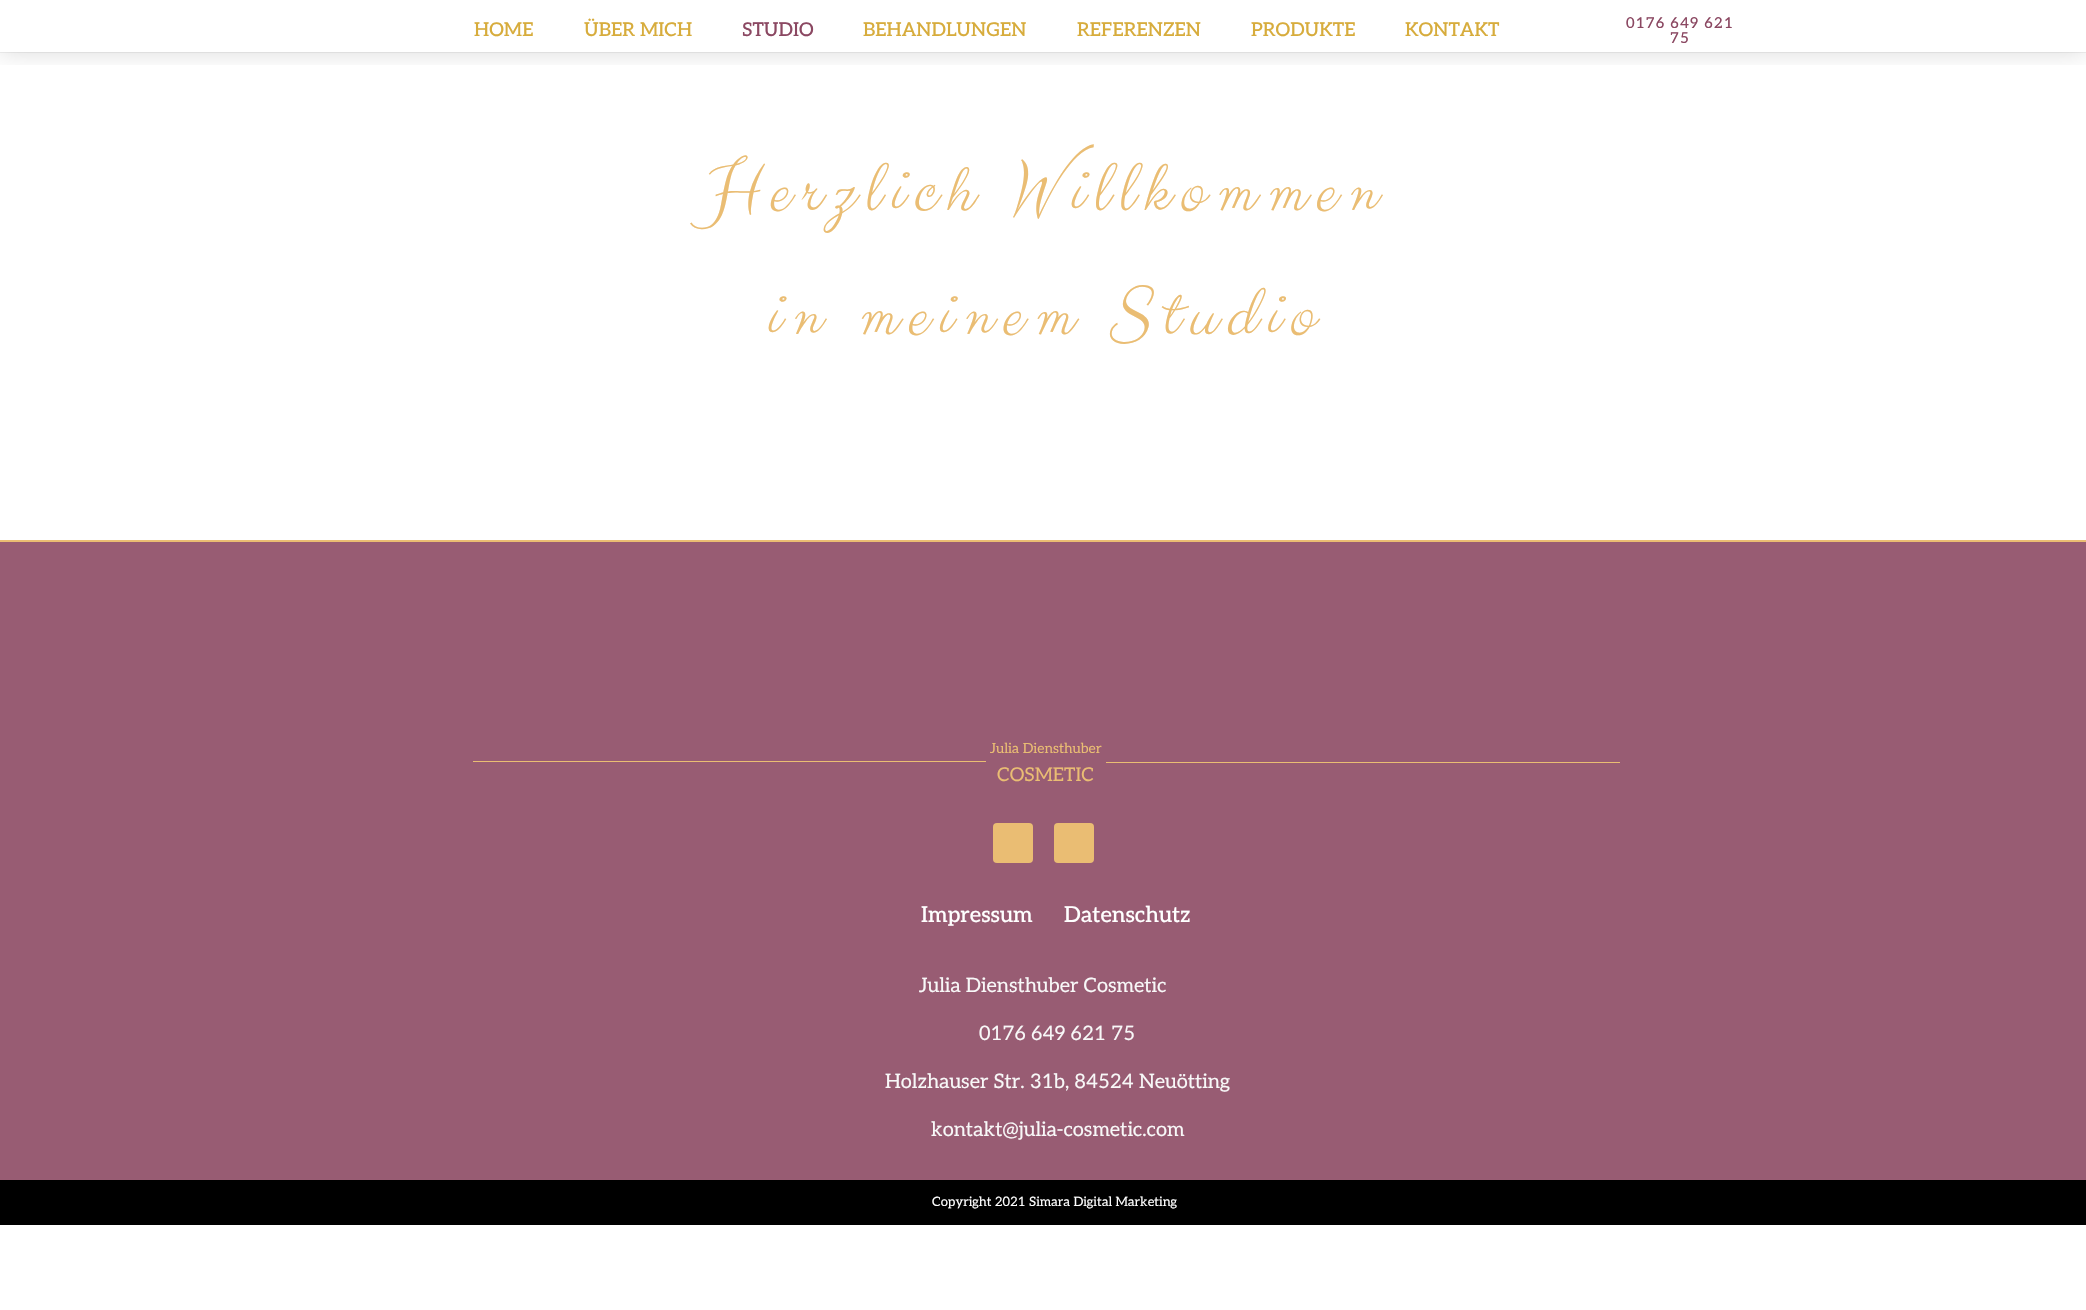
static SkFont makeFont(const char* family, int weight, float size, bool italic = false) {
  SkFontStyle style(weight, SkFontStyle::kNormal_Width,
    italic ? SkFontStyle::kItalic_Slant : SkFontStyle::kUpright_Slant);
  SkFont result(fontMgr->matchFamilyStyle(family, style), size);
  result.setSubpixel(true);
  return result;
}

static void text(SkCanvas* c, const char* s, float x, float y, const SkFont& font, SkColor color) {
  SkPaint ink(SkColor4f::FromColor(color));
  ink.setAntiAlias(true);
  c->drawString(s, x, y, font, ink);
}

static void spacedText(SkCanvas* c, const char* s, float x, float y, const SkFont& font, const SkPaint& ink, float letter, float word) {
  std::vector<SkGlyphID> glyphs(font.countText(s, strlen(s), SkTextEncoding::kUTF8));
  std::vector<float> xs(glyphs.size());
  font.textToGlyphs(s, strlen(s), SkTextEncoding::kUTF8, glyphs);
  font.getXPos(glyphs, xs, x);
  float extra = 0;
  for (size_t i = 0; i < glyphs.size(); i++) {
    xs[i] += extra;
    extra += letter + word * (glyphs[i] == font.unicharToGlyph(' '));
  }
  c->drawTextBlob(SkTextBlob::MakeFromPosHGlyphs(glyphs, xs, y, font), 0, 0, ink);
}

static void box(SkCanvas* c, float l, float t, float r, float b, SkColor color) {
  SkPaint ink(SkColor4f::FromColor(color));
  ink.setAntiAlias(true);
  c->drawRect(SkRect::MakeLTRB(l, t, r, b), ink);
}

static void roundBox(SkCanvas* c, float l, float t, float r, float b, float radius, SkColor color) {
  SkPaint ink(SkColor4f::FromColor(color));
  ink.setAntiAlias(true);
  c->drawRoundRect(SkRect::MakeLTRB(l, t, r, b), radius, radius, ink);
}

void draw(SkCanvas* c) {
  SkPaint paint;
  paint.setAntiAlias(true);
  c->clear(0xffffffff);
  box(c, 0, 52, 2086, 53, 0xfff1f1f1);
  c->save();
  c->clipRect(SkRect::MakeLTRB(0, 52, 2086, 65));
  paint.setColor(0x26000000);
  paint.setMaskFilter(SkMaskFilter::MakeBlur(kNormal_SkBlurStyle, 12));
  c->drawRect(SkRect::MakeLTRB(0, 0, 2086, 52), paint);
  paint.setMaskFilter(nullptr);
  c->restore();
  SkFont face1 = makeFont("Aleo", 500, 19);
  text(c, "HOME", 474, 36, face1, 0xffd7ac3c);
  text(c, "ÜBER MICH", 584, 36, face1, 0xffd7ac3c);
  text(c, "STUDIO", 742, 36, face1, 0xff8b4862);
  text(c, "BEHANDLUNGEN", 863, 36, face1, 0xffd7ac3c);
  text(c, "REFERENZEN", 1077, 36, face1, 0xffd7ac3c);
  text(c, "PRODUKTE", 1251, 36, face1, 0xffd7ac3c);
  text(c, "KONTAKT", 1405, 36, face1, 0xffd7ac3c);
  SkFont face2 = makeFont("Aleo", 500, 15);
  paint.setColor(0xff8b4862);
  spacedText(c, "0176 649 621", 1626, 28, face2, paint, 1.1f, 0);
  spacedText(c, "75", 1670, 43, face2, paint, 1.1f, 0);
  SkFont face3 = makeFont("Clicker Script", 400, 73, true);
  paint.setColor(0xffeabd73);
  spacedText(c, "Herzlich Willkommen", 701, 212, face3, paint, 10, 0);
  spacedText(c, "in meinem Studio", 764, 336, face3, paint, 10, 0);
  box(c, 0, 540, 2086, 542, 0xffeabd73);
  box(c, 0, 542, 2086, 1180, 0xff985c73);
  box(c, 473, 761, 986, 762, 0xffeabd73);
  SkFont face4 = makeFont("Aleo", 400, 14);
  text(c, "Julia Diensthuber", 990, 753, face4, 0xffeabd73);
  SkFont face5 = makeFont("Aleo", 400, 19);
  text(c, "COSMETIC", 997, 781, face5, 0xffeabd73);
  box(c, 1106, 762, 1620, 763, 0xffeabd73);
  roundBox(c, 993, 823, 1033, 863, 4, 0xffeabd73);
  roundBox(c, 1054, 823, 1094, 863, 4, 0xffeabd73);
  SkFont face6 = makeFont("Aleo", 500, 22);
  text(c, "Impressum", 921, 922, face6, 0xffffffff);
  text(c, "Datenschutz", 1064, 922, face6, 0xffffffff);
  SkFont face7 = makeFont("Aleo", 400, 20);
  text(c, "Julia Diensthuber Cosmetic", 919, 992, face7, 0xfff8f8f8);
  text(c, "0176 649 621 75", 979, 1040, face7, 0xfff8f8f8);
  text(c, "Holzhauser Str. 31b, 84524 Neuötting", 885, 1088, face7, 0xfff8f8f8);
  text(c, "kontakt@julia-cosmetic.com", 931, 1136, face7, 0xfff8f8f8);
  box(c, 0, 1180, 2086, 1225, 0xff000000);
  SkFont face8 = makeFont("Aleo", 400, 13);
  text(c, "Copyright 2021 Simara Digital Marketing", 932, 1206, face8, 0xffffffff);
}
